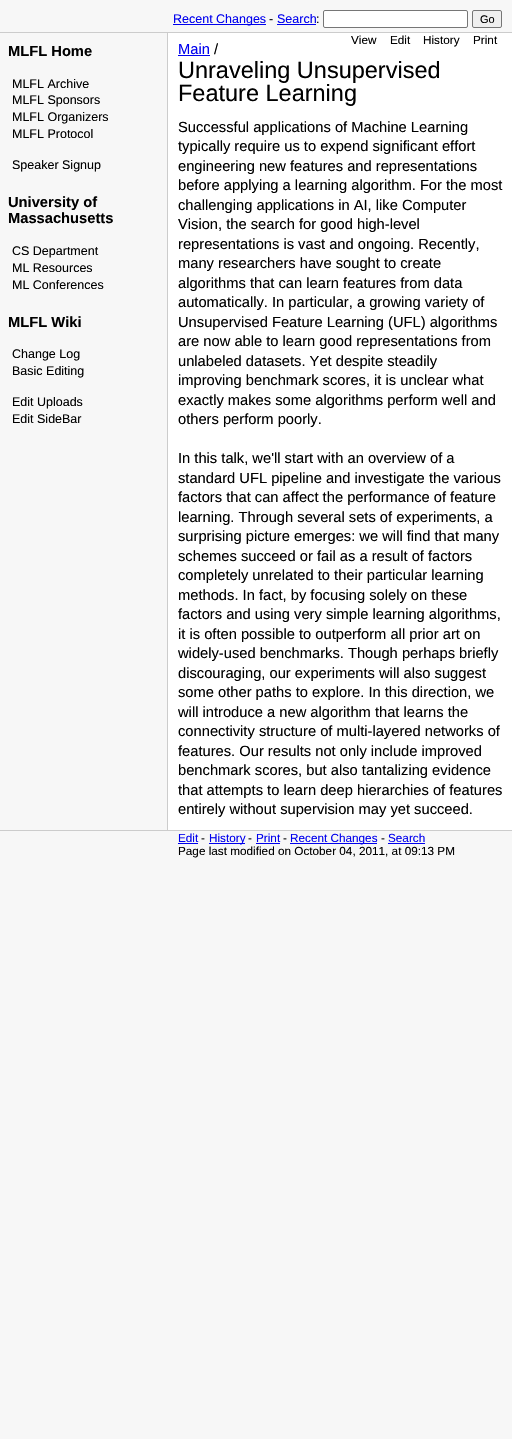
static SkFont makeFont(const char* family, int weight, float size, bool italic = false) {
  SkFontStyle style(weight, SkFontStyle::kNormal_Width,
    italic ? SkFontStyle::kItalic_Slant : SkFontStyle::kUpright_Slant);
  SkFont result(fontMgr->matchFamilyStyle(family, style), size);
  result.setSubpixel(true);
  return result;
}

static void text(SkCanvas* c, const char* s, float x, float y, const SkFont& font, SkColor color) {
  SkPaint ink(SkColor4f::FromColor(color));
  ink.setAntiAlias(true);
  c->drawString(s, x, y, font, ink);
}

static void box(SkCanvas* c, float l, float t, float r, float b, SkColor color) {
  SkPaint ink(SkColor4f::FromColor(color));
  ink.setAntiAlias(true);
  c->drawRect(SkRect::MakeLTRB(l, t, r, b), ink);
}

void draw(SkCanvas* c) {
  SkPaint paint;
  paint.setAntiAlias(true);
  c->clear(0xfff7f7f7);
  box(c, 173, 24, 266, 25, 0xff0000ee);
  SkFont face1 = makeFont("Liberation Sans", 400, 12.5f);
  text(c, "Recent Changes", 173, 23, face1, 0xff0000ee);
  text(c, "-", 269, 23, face1, 0xff000000);
  text(c, "Search", 277, 23, face1, 0xff0000ee);
  box(c, 277, 24, 316, 25, 0xff0000ee);
  text(c, ":", 316, 23, face1, 0xff000000);
  paint.setColor(0xffffffff);
  c->drawRoundRect(SkRect::MakeLTRB(323.5f, 10.5f, 467.5f, 27.5f), 1.5f, 1.5f, paint);
  paint.setStyle(SkPaint::kStroke_Style);
  paint.setStrokeWidth(1);
  paint.setColor(0xff767676);
  c->drawRoundRect(SkRect::MakeLTRB(323.5f, 10.5f, 467.5f, 27.5f), 1.5f, 1.5f, paint);
  paint.setStyle(SkPaint::kFill_Style);
  paint.setColor(0xffefefef);
  c->drawRoundRect(SkRect::MakeLTRB(472.5f, 10.5f, 501.5f, 27.5f), 1.5f, 1.5f, paint);
  paint.setStyle(SkPaint::kStroke_Style);
  paint.setColor(0xff767676);
  c->drawRoundRect(SkRect::MakeLTRB(472.5f, 10.5f, 501.5f, 27.5f), 1.5f, 1.5f, paint);
  SkFont face2 = makeFont("Liberation Sans", 400, 11);
  text(c, "Go", 480, 23, face2, 0xff000000);
  box(c, 0, 32, 512, 33, 0xffcccccc);
  box(c, 167, 33, 168, 830, 0xffcccccc);
  SkFont face3 = makeFont("Liberation Sans", 700, 14.7f);
  text(c, "MLFL Home", 8, 56, face3, 0xff000000);
  text(c, "MLFL Archive", 12, 88, face1, 0xff000000);
  text(c, "MLFL Sponsors", 12, 104, face1, 0xff000000);
  text(c, "MLFL Organizers", 12, 121, face1, 0xff000000);
  text(c, "MLFL Protocol", 12, 138, face1, 0xff000000);
  text(c, "Speaker Signup", 12, 169, face1, 0xff000000);
  text(c, "University of", 8, 207, face3, 0xff000000);
  text(c, "Massachusetts", 8, 223, face3, 0xff000000);
  text(c, "CS Department", 12, 255, face1, 0xff000000);
  text(c, "ML Resources", 12, 272, face1, 0xff000000);
  text(c, "ML Conferences", 12, 289, face1, 0xff000000);
  text(c, "MLFL Wiki", 8, 327, face3, 0xff000000);
  text(c, "Change Log", 12, 358, face1, 0xff000000);
  text(c, "Basic Editing", 12, 375, face1, 0xff000000);
  text(c, "Edit Uploads", 12, 406, face1, 0xff000000);
  text(c, "Edit SideBar", 12, 423, face1, 0xff000000);
  box(c, 168, 33, 512, 830, 0xffffffff);
  SkFont face4 = makeFont("Liberation Sans", 400, 11.75f);
  text(c, "View", 351, 44, face4, 0xff000000);
  text(c, "Edit", 390, 44, face4, 0xff000000);
  text(c, "History", 423, 44, face4, 0xff000000);
  text(c, "Print", 473, 44, face4, 0xff000000);
  SkFont face5 = makeFont("Liberation Sans", 400, 14.7f);
  text(c, "Main", 178, 54, face5, 0xff0000ee);
  box(c, 178, 55, 210, 56, 0xff0000ee);
  text(c, "/", 214, 54, face5, 0xff000000);
  SkFont face6 = makeFont("Liberation Sans", 400, 23.5f);
  text(c, "Unraveling Unsupervised", 178, 78, face6, 0xff000000);
  text(c, "Feature Learning", 178, 101, face6, 0xff000000);
  text(c, "Successful applications of Machine Learning", 178, 132, face5, 0xff000000);
  text(c, "typically require us to expend significant effort", 178, 151, face5, 0xff000000);
  text(c, "engineering new features and representations", 178, 171, face5, 0xff000000);
  text(c, "before applying a learning algorithm. For the most", 178, 190, face5, 0xff000000);
  text(c, "challenging applications in AI, like Computer", 178, 210, face5, 0xff000000);
  text(c, "Vision, the search for good high-level", 178, 229, face5, 0xff000000);
  text(c, "representations is vast and ongoing. Recently,", 178, 249, face5, 0xff000000);
  text(c, "many researchers have sought to create", 178, 268, face5, 0xff000000);
  text(c, "algorithms that can learn features from data", 178, 288, face5, 0xff000000);
  text(c, "automatically. In particular, a growing variety of", 178, 307, face5, 0xff000000);
  text(c, "Unsupervised Feature Learning (UFL) algorithms", 178, 327, face5, 0xff000000);
  text(c, "are now able to learn good representations from", 178, 346, face5, 0xff000000);
  text(c, "unlabeled datasets. Yet despite steadily", 178, 366, face5, 0xff000000);
  text(c, "improving benchmark scores, it is unclear what", 178, 385, face5, 0xff000000);
  text(c, "exactly makes some algorithms perform well and", 178, 405, face5, 0xff000000);
  text(c, "others perform poorly.", 178, 424, face5, 0xff000000);
  text(c, "In this talk, we'll start with an overview of a", 178, 463, face5, 0xff000000);
  text(c, "standard UFL pipeline and investigate the various", 178, 483, face5, 0xff000000);
  text(c, "factors that can affect the performance of feature", 178, 502, face5, 0xff000000);
  text(c, "learning. Through several sets of experiments, a", 178, 522, face5, 0xff000000);
  text(c, "surprising picture emerges: we will find that many", 178, 541, face5, 0xff000000);
  text(c, "schemes succeed or fail as a result of factors", 178, 561, face5, 0xff000000);
  text(c, "completely unrelated to their particular learning", 178, 580, face5, 0xff000000);
  text(c, "methods. In fact, by focusing solely on these", 178, 600, face5, 0xff000000);
  text(c, "factors and using very simple learning algorithms,", 178, 619, face5, 0xff000000);
  text(c, "it is often possible to outperform all prior art on", 178, 639, face5, 0xff000000);
  text(c, "widely-used benchmarks. Though perhaps briefly", 178, 658, face5, 0xff000000);
  text(c, "discouraging, our experiments will also suggest", 178, 678, face5, 0xff000000);
  text(c, "some other paths to explore. In this direction, we", 178, 697, face5, 0xff000000);
  text(c, "will introduce a new algorithm that learns the", 178, 717, face5, 0xff000000);
  text(c, "connectivity structure of multi-layered networks of", 178, 736, face5, 0xff000000);
  text(c, "features. Our results not only include improved", 178, 756, face5, 0xff000000);
  text(c, "benchmark scores, but also tantalizing evidence", 178, 775, face5, 0xff000000);
  text(c, "that attempts to learn deep hierarchies of features", 178, 795, face5, 0xff000000);
  text(c, "entirely without supervision may yet succeed.", 178, 814, face5, 0xff000000);
  box(c, 0, 830, 512, 831, 0xffcccccc);
  text(c, "Edit", 178, 842, face4, 0xff0000ee);
  box(c, 178, 843, 198, 844, 0xff0000ee);
  text(c, "-", 201, 842, face4, 0xff000000);
  box(c, 209, 843, 245, 844, 0xff0000ee);
  text(c, "History", 209, 842, face4, 0xff0000ee);
  text(c, "-", 248, 842, face4, 0xff000000);
  text(c, "Print", 256, 842, face4, 0xff0000ee);
  box(c, 256, 843, 280, 844, 0xff0000ee);
  text(c, "-", 283, 842, face4, 0xff000000);
  box(c, 290, 843, 377, 844, 0xff0000ee);
  text(c, "Recent Changes", 290, 842, face4, 0xff0000ee);
  text(c, "-", 381, 842, face4, 0xff000000);
  text(c, "Search", 388, 842, face4, 0xff0000ee);
  box(c, 388, 843, 425, 844, 0xff0000ee);
  text(c, "Page last modified on October 04, 2011, at 09:13 PM", 178, 855, face4, 0xff000000);
}
